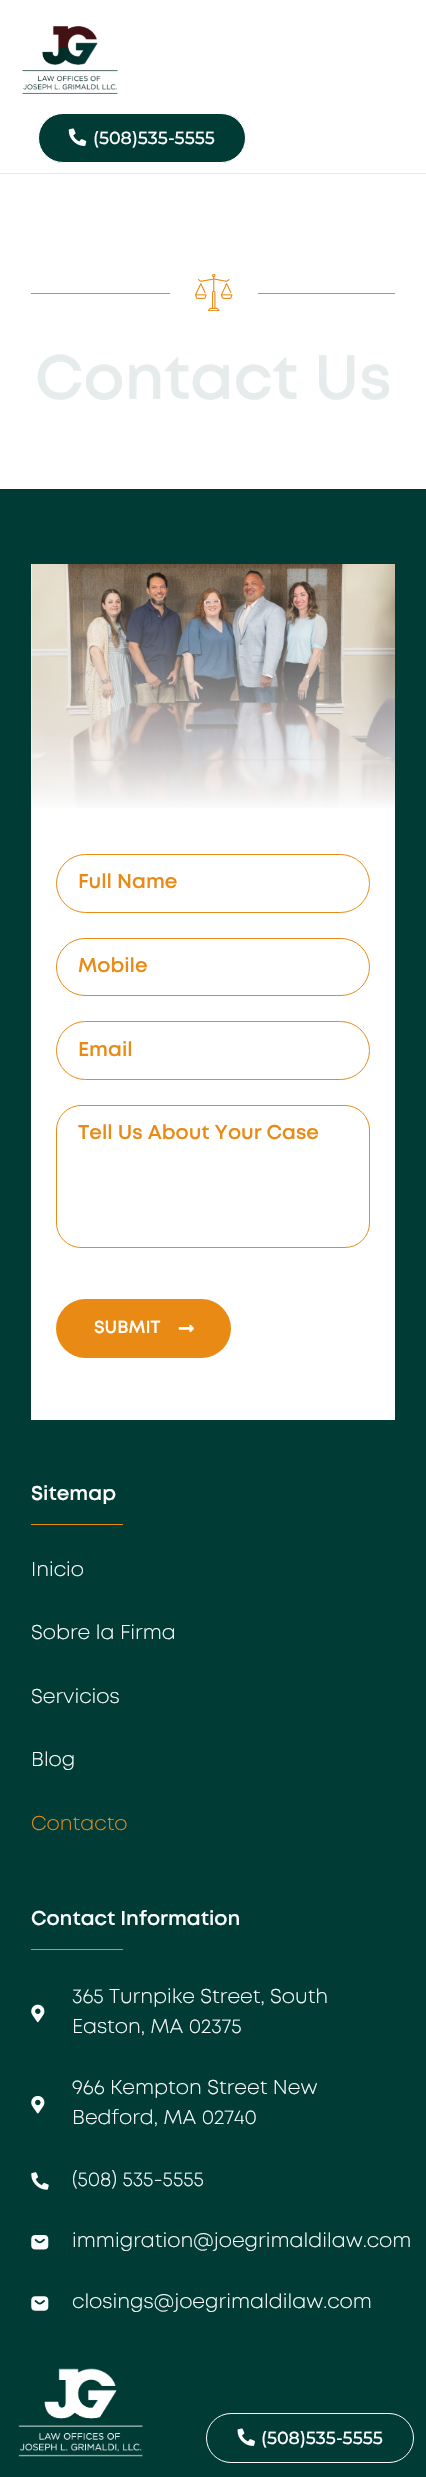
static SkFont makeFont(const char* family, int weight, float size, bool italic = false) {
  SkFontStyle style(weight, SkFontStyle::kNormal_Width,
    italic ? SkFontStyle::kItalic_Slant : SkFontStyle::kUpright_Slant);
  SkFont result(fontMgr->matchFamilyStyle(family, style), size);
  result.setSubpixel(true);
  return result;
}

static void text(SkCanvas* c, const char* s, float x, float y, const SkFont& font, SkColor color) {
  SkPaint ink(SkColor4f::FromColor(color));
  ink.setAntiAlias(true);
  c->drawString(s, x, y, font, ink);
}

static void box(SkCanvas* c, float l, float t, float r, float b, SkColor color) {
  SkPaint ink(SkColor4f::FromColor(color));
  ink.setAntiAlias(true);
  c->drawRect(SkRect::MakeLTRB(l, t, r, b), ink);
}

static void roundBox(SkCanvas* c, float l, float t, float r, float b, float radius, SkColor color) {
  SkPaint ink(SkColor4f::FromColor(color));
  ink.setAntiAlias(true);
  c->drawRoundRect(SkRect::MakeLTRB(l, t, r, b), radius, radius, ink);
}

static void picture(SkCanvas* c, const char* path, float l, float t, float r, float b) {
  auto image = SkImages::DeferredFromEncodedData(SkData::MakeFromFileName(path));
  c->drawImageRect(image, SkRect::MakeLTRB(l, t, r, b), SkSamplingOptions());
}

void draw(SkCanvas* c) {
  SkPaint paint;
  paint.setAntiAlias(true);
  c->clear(0xff003b36);
  box(c, 0, 0, 426, 173, 0xffffffff);
  box(c, 0, 173, 426, 174, 0xffe7e7e7);
  picture(c, "img_01.png", 22, 26, 118, 94);
  paint.setColor(0xff003b36);
  c->drawRoundRect(SkRect::MakeLTRB(38.5f, 113.5f, 245.5f, 162.5f), 24.5f, 24.5f, paint);
  paint.setStyle(SkPaint::kStroke_Style);
  paint.setStrokeWidth(1);
  paint.setColor(0xffffffff);
  c->drawRoundRect(SkRect::MakeLTRB(38.5f, 113.5f, 245.5f, 162.5f), 24.5f, 24.5f, paint);
  picture(c, "img_02.png", 68, 128, 87, 146);
  SkFont face1 = makeFont("Montserrat", 500, 17.5f);
  text(c, "(508)535-5555", 93, 144, face1, 0xffffffff);
  c->drawRoundRect(SkRect::MakeLTRB(206.5f, 2413.5f, 413.5f, 2462.5f), 24.5f, 24.5f, paint);
  picture(c, "img_03.png", 237, 2428, 255, 2446);
  text(c, "(508)535-5555", 261, 2444, face1, 0xffffffff);
  box(c, 0, 174, 426, 489, 0xffffffff);
  box(c, 31, 293, 170, 294, 0xffe98a15);
  picture(c, "img_04.png", 195, 274, 233, 311);
  box(c, 258, 293, 395, 294, 0xffe98a15);
  SkFont face2 = makeFont("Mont", 600, 62.5f);
  text(c, "Contact Us", 35, 399, face2, 0xffe6ebeb);
  box(c, 31, 564, 395, 1420, 0xffffffff);
  picture(c, "img_05.png", 31, 564, 395, 808);
  paint.setColor(0xffe98a15);
  c->drawRoundRect(SkRect::MakeLTRB(56.5f, 854.5f, 369.5f, 912.5f), 29, 29, paint);
  SkFont face3 = makeFont("Mont", 600, 20);
  text(c, "Full Name", 78, 888, face3, 0xffe98a15);
  c->drawRoundRect(SkRect::MakeLTRB(56.5f, 938.5f, 369.5f, 995.5f), 28.5f, 28.5f, paint);
  text(c, "Mobile", 78, 972, face3, 0xffe98a15);
  c->drawRoundRect(SkRect::MakeLTRB(56.5f, 1021.5f, 369.5f, 1079.5f), 29, 29, paint);
  text(c, "Email", 78, 1056, face3, 0xffe98a15);
  c->drawRoundRect(SkRect::MakeLTRB(56.5f, 1105.5f, 369.5f, 1247.5f), 24.5f, 24.5f, paint);
  text(c, "Tell Us About Your Case", 78, 1139, face3, 0xffe98a15);
  roundBox(c, 56, 1299, 231, 1358, 29.5f, 0xffe98a15);
  SkFont face4 = makeFont("Mont", 600, 17.5f);
  text(c, "SUBMIT", 94, 1333, face4, 0xffffffff);
  picture(c, "img_06.png", 178, 1324, 194, 1333);
  text(c, "Sitemap", 31, 1500, face3, 0xffffffff);
  box(c, 31, 1524, 123, 1525, 0xffe98a15);
  SkFont face5 = makeFont("Mont", 300, 20);
  text(c, "Inicio", 31, 1576, face5, 0xffffffff);
  text(c, "Sobre la Firma", 31, 1639, face5, 0xffffffff);
  text(c, "Servicios", 31, 1703, face5, 0xffffffff);
  text(c, "Blog", 31, 1766, face5, 0xffffffff);
  text(c, "Contacto", 31, 1830, face5, 0xffe98a15);
  text(c, "Contact Information", 31, 1925, face3, 0xffffffff);
  box(c, 31, 1949, 123, 1950, 0xffe98a15);
  picture(c, "img_07.png", 31, 2004, 45, 2023);
  text(c, "365 Turnpike Street, South", 72, 2003, face5, 0xffffffff);
  text(c, "Easton, MA 02375", 72, 2033, face5, 0xffffffff);
  picture(c, "img_08.png", 31, 2095, 45, 2114);
  text(c, "966 Kempton Street New", 72, 2094, face5, 0xffffffff);
  text(c, "Bedford, MA 02740", 72, 2124, face5, 0xffffffff);
  picture(c, "img_09.png", 31, 2172, 49, 2190);
  text(c, "(508) 535-5555", 72, 2186, face5, 0xffffffff);
  picture(c, "img_10.png", 31, 2235, 49, 2250);
  text(c, "immigration@joegrimaldilaw.com", 72, 2247, face5, 0xffffffff);
  picture(c, "img_11.png", 31, 2296, 49, 2311);
  text(c, "closings@joegrimaldilaw.com", 72, 2308, face5, 0xffffffff);
  picture(c, "img_12.png", 18, 2368, 143, 2457);
}
